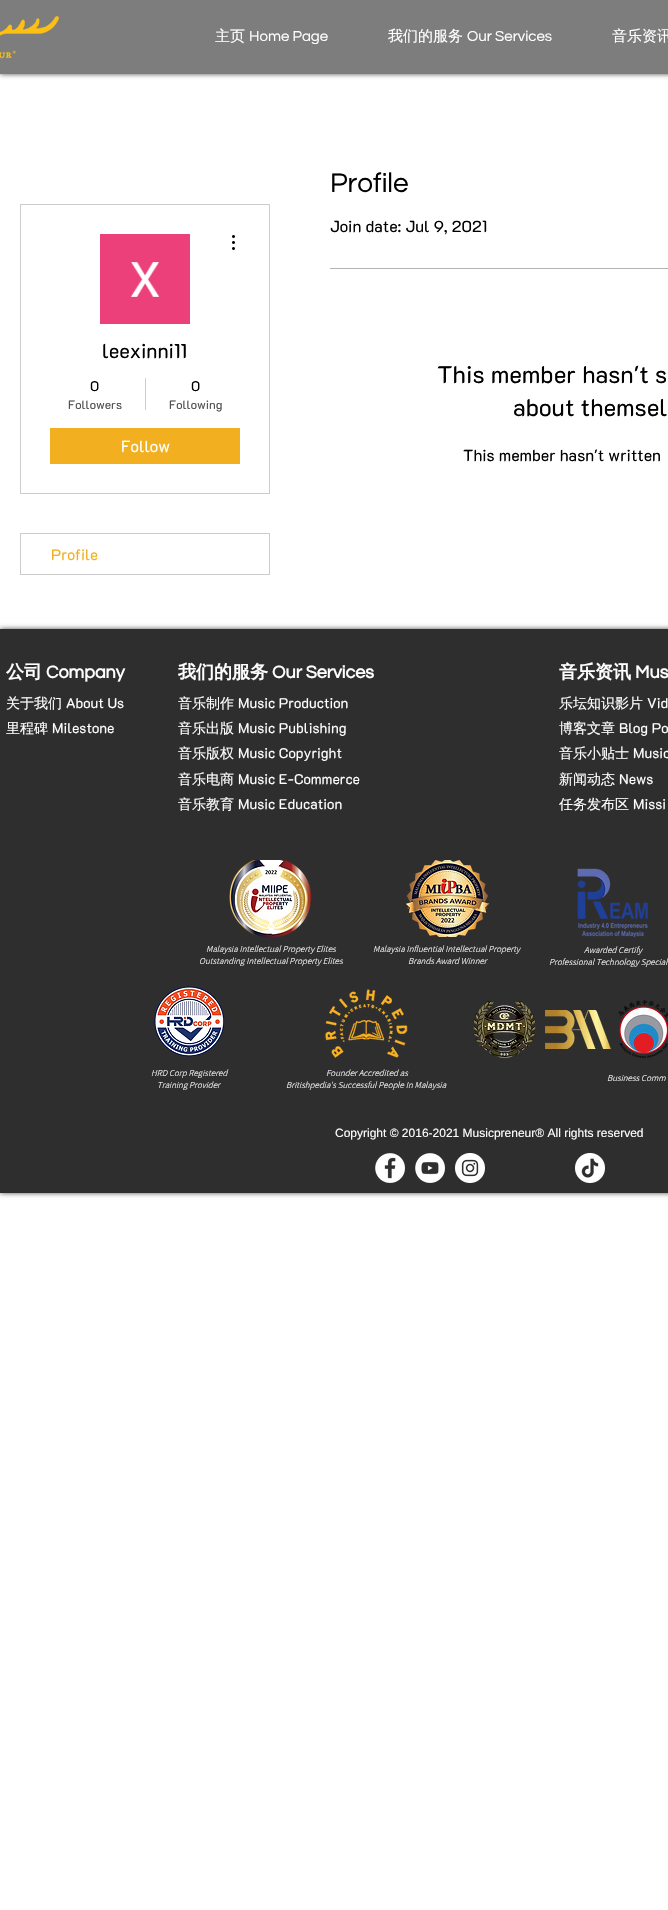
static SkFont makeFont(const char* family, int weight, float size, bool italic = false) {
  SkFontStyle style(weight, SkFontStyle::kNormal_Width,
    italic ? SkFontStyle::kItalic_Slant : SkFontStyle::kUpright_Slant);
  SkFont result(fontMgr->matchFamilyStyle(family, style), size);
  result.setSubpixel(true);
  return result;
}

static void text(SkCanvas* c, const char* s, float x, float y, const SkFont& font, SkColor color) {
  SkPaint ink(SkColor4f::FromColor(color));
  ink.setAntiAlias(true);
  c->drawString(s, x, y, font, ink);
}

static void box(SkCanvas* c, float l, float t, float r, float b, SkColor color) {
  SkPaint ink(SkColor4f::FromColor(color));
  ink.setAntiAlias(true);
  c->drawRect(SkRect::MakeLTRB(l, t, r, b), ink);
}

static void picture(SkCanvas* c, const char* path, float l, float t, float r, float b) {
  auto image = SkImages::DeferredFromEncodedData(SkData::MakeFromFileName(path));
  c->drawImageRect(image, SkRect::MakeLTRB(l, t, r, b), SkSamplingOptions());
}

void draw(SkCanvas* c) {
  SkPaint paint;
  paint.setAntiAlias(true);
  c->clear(0xffffffff);
  paint.setColor(0xb3000000);
  paint.setMaskFilter(SkMaskFilter::MakeBlur(kNormal_SkBlurStyle, 2.5f));
  c->drawRect(SkRect::MakeLTRB(0, 0, 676, 74), paint);
  paint.setMaskFilter(nullptr);
  box(c, 0, 0, 668, 74, 0xff7d7d7d);
  picture(c, "img_01.png", 0, 16, 59, 59);
  SkFont face1 = makeFont("WenQuanYi Zen Hei", 500, 15);
  text(c, "主页", 215, 41, face1, 0xffffffff);
  SkFont face2 = makeFont("Questrial", 400, 15);
  text(c, "Home Page", 249, 41, face2, 0xffffffff);
  text(c, "我们的服务", 388, 41, face1, 0xffffffff);
  text(c, "Our Services", 467, 41, face2, 0xffffffff);
  text(c, "音乐资讯", 612, 41, face1, 0xffffffff);
  paint.setStyle(SkPaint::kStroke_Style);
  paint.setStrokeWidth(1);
  paint.setColor(0xffcccccc);
  c->drawRect(SkRect::MakeLTRB(20.5f, 204.5f, 269.5f, 493.5f), paint);
  picture(c, "img_02.png", 100, 234, 190, 324);
  picture(c, "img_03.png", 232, 235, 235, 250);
  SkFont face3 = makeFont("K2D", 400, 20);
  text(c, "leexinni11", 102, 358, face3, 0xff000000);
  SkFont face4 = makeFont("K2D", 400, 14);
  text(c, "0", 90, 391, face4, 0xff000000);
  SkFont face5 = makeFont("K2D", 400, 12);
  text(c, "Followers", 68, 409, face5, 0xff4d4d4d);
  box(c, 145, 378, 146, 410, 0xffcccccc);
  text(c, "0", 191, 391, face4, 0xff000000);
  text(c, "Following", 169, 409, face5, 0xff4d4d4d);
  box(c, 50, 428, 240, 464, 0xfff2b021);
  SkFont face6 = makeFont("K2D", 400, 16);
  text(c, "Follow", 121, 452, face6, 0xffffffff);
  c->drawRect(SkRect::MakeLTRB(20.5f, 533.5f, 269.5f, 574.5f), paint);
  SkFont face7 = makeFont("K2D", 400, 15);
  text(c, "Profile", 51, 560, face7, 0xfff2b021);
  SkFont face8 = makeFont("Questrial", 400, 28);
  text(c, "Profile", 330, 192, face8, 0xff000000);
  text(c, "Join date: Jul 9, 2021", 330, 232, face6, 0xff000000);
  box(c, 330, 268, 668, 269, 0xffb3b3b3);
  SkFont face9 = makeFont("K2D", 400, 24);
  text(c, "This member hasn't s", 437, 383, face9, 0xff000000);
  text(c, "about themsel", 513, 416, face9, 0xff000000);
  text(c, "This member hasn't written", 463, 461, face6, 0xff000000);
  paint.setStyle(SkPaint::kFill_Style);
  paint.setColor(0xb3000000);
  paint.setMaskFilter(SkMaskFilter::MakeBlur(kNormal_SkBlurStyle, 2.5f));
  c->drawRect(SkRect::MakeLTRB(0, 629, 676, 1193), paint);
  paint.setMaskFilter(nullptr);
  box(c, 0, 629, 668, 1193, 0xff2f2e2e);
  SkFont face10 = makeFont("WenQuanYi Zen Hei", 700, 18);
  text(c, "公司", 6, 678, face10, 0xffffffff);
  SkFont face11 = makeFont("Questrial", 700, 18);
  text(c, "Company", 46, 678, face11, 0xffffffff);
  SkFont face12 = makeFont("WenQuanYi Zen Hei", 500, 14);
  text(c, "关于我们", 6, 708, face12, 0xffffffff);
  text(c, "About Us", 66, 708, face4, 0xffffffff);
  text(c, "里程碑", 6, 733, face12, 0xffffffff);
  text(c, "Milestone", 52, 733, face4, 0xffffffff);
  text(c, "我们的服务", 178, 678, face10, 0xffffffff);
  text(c, "Our Services", 272, 678, face11, 0xffffffff);
  text(c, "音乐制作", 178, 708, face12, 0xffffffff);
  text(c, "Music Production", 238, 708, face4, 0xffffffff);
  text(c, "音乐出版", 178, 733, face12, 0xffffffff);
  text(c, "Music Publishing", 238, 733, face4, 0xffffffff);
  text(c, "音乐版权", 178, 758, face12, 0xffffffff);
  text(c, "Music Copyright", 238, 758, face4, 0xffffffff);
  text(c, "音乐电商", 178, 784, face12, 0xffffffff);
  text(c, "Music E-Commerce", 238, 784, face4, 0xffffffff);
  text(c, "音乐教育", 178, 809, face12, 0xffffffff);
  text(c, "Music Education", 238, 809, face4, 0xffffffff);
  text(c, "音乐资讯", 559, 678, face10, 0xffffffff);
  text(c, "Mus", 635, 678, face11, 0xffffffff);
  text(c, "乐坛知识影片", 559, 708, face12, 0xffffffff);
  text(c, "Vid", 647, 708, face4, 0xffffffff);
  text(c, "博客文章", 559, 733, face12, 0xffffffff);
  text(c, "Blog Po", 619, 733, face4, 0xffffffff);
  text(c, "音乐小贴士", 559, 758, face12, 0xffffffff);
  text(c, "Music", 633, 758, face4, 0xffffffff);
  text(c, "新闻动态", 559, 784, face12, 0xffffffff);
  text(c, "News", 619, 784, face4, 0xffffffff);
  text(c, "任务发布区", 559, 809, face12, 0xffffffff);
  text(c, "Missi", 633, 809, face4, 0xffffffff);
  picture(c, "img_04.png", 229, 860, 312, 937);
  picture(c, "img_05.png", 405, 860, 490, 937);
  picture(c, "img_06.png", 577, 868, 648, 937);
  SkFont face13 = makeFont("Assistant", 300, 9, true);
  text(c, "Malaysia Intellectual Property Elites", 206, 952, face13, 0xffffffff);
  text(c, "Outstanding Intellectual Property Elites", 199, 964, face13, 0xffffffff);
  text(c, "Malaysia Influential Intellectual Property", 373, 952, face13, 0xffffffff);
  text(c, "Brands Award Winner", 408, 964, face13, 0xffffffff);
  text(c, "Awarded Certify", 584, 953, face13, 0xffffffff);
  text(c, "Professional Technology Special", 549, 965, face13, 0xffffffff);
  picture(c, "img_07.png", 154, 986, 225, 1057);
  picture(c, "img_08.png", 324, 989, 408, 1058);
  picture(c, "img_09.png", 473, 1001, 536, 1058);
  picture(c, "img_10.png", 545, 1010, 611, 1049);
  picture(c, "img_11.png", 618, 999, 668, 1058);
  text(c, "HRD Corp Registered", 151, 1076, face13, 0xffffffff);
  text(c, "Training Provider", 157, 1088, face13, 0xffffffff);
  text(c, "Founder Accredited as", 326, 1076, face13, 0xffffffff);
  text(c, "Britishpedia's Successful People In Malaysia", 286, 1088, face13, 0xffffffff);
  text(c, "Business Comm", 607, 1081, face13, 0xffffffff);
  SkFont face14 = makeFont("Liberation Sans", 400, 12);
  text(c, "Copyright © 2016-2021 Musicpreneur® All rights reserved", 335, 1137, face14, 0xffffffff);
  picture(c, "img_12.png", 375, 1153, 405, 1183);
  picture(c, "img_13.png", 415, 1153, 445, 1183);
  picture(c, "img_14.png", 455, 1153, 485, 1183);
  picture(c, "img_15.png", 575, 1153, 605, 1183);
}
